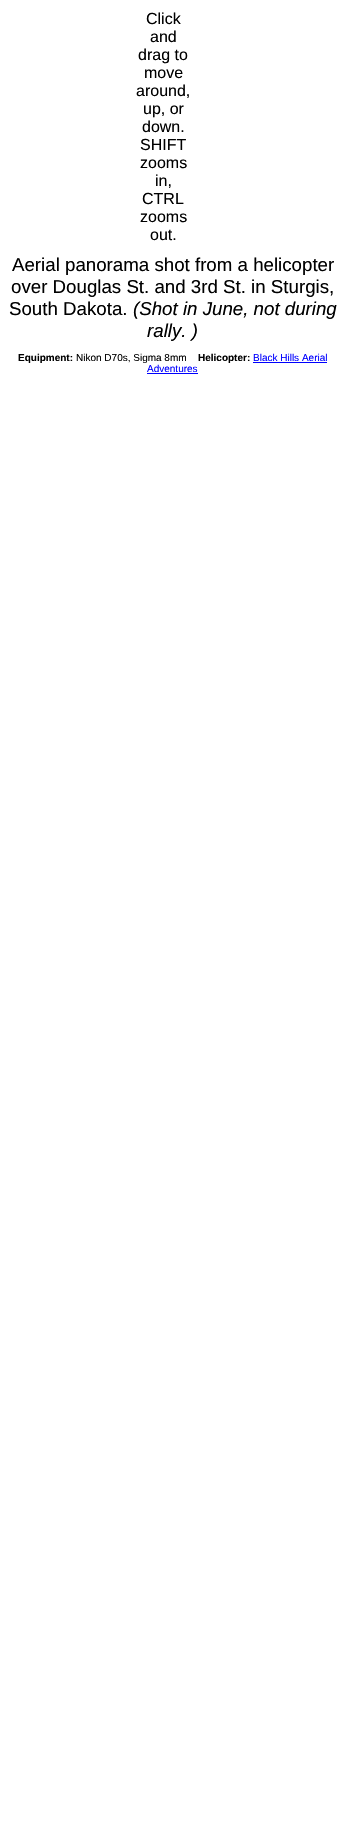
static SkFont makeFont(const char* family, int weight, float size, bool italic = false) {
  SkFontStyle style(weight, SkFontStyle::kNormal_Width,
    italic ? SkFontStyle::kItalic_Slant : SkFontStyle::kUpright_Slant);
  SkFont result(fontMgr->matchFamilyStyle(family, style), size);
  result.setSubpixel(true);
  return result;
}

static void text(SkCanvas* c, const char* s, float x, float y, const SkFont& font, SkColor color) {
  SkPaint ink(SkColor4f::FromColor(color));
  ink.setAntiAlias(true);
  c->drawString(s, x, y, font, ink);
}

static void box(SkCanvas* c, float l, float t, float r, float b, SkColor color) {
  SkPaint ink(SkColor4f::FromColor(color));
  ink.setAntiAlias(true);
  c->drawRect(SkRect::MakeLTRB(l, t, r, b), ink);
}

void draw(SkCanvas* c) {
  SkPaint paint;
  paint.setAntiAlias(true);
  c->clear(0xffffffff);
  SkFont face1 = makeFont("Liberation Sans", 400, 16);
  text(c, "Click", 146, 24, face1, 0xff000000);
  text(c, "and", 150, 42, face1, 0xff000000);
  text(c, "drag to", 138, 60, face1, 0xff000000);
  text(c, "move", 144, 78, face1, 0xff000000);
  text(c, "around,", 136, 96, face1, 0xff000000);
  text(c, "up, or", 143, 114, face1, 0xff000000);
  text(c, "down.", 142, 132, face1, 0xff000000);
  text(c, "SHIFT", 140, 150, face1, 0xff000000);
  text(c, "zooms", 140, 168, face1, 0xff000000);
  text(c, "in,", 155, 186, face1, 0xff000000);
  text(c, "CTRL", 142, 204, face1, 0xff000000);
  text(c, "zooms", 140, 222, face1, 0xff000000);
  text(c, "out.", 150, 240, face1, 0xff000000);
  SkFont face2 = makeFont("Liberation Sans", 400, 18.7f);
  text(c, "Aerial panorama shot from a helicopter", 12, 271, face2, 0xff000000);
  text(c, "over Douglas St. and 3rd St. in Sturgis,", 11, 293, face2, 0xff000000);
  text(c, "South Dakota.", 9, 315, face2, 0xff000000);
  SkFont face3 = makeFont("Liberation Sans", 400, 18.7f, true);
  text(c, "(Shot in June, not during", 133, 315, face3, 0xff000000);
  text(c, "rally. )", 147, 337, face3, 0xff000000);
  SkFont face4 = makeFont("Liberation Sans", 700, 10);
  text(c, "Equipment:", 18, 361, face4, 0xff000000);
  SkFont face5 = makeFont("Liberation Sans", 400, 10);
  text(c, "Nikon D70s, Sigma 8mm", 76, 361, face5, 0xff000000);
  text(c, "Helicopter:", 198, 361, face4, 0xff000000);
  text(c, "Black Hills Aerial", 253, 361, face5, 0xff0000ff);
  box(c, 253, 362, 327, 363, 0xff0000ff);
  text(c, "Adventures", 147, 372, face5, 0xff0000ff);
  box(c, 147, 373, 198, 374, 0xff0000ff);
}
